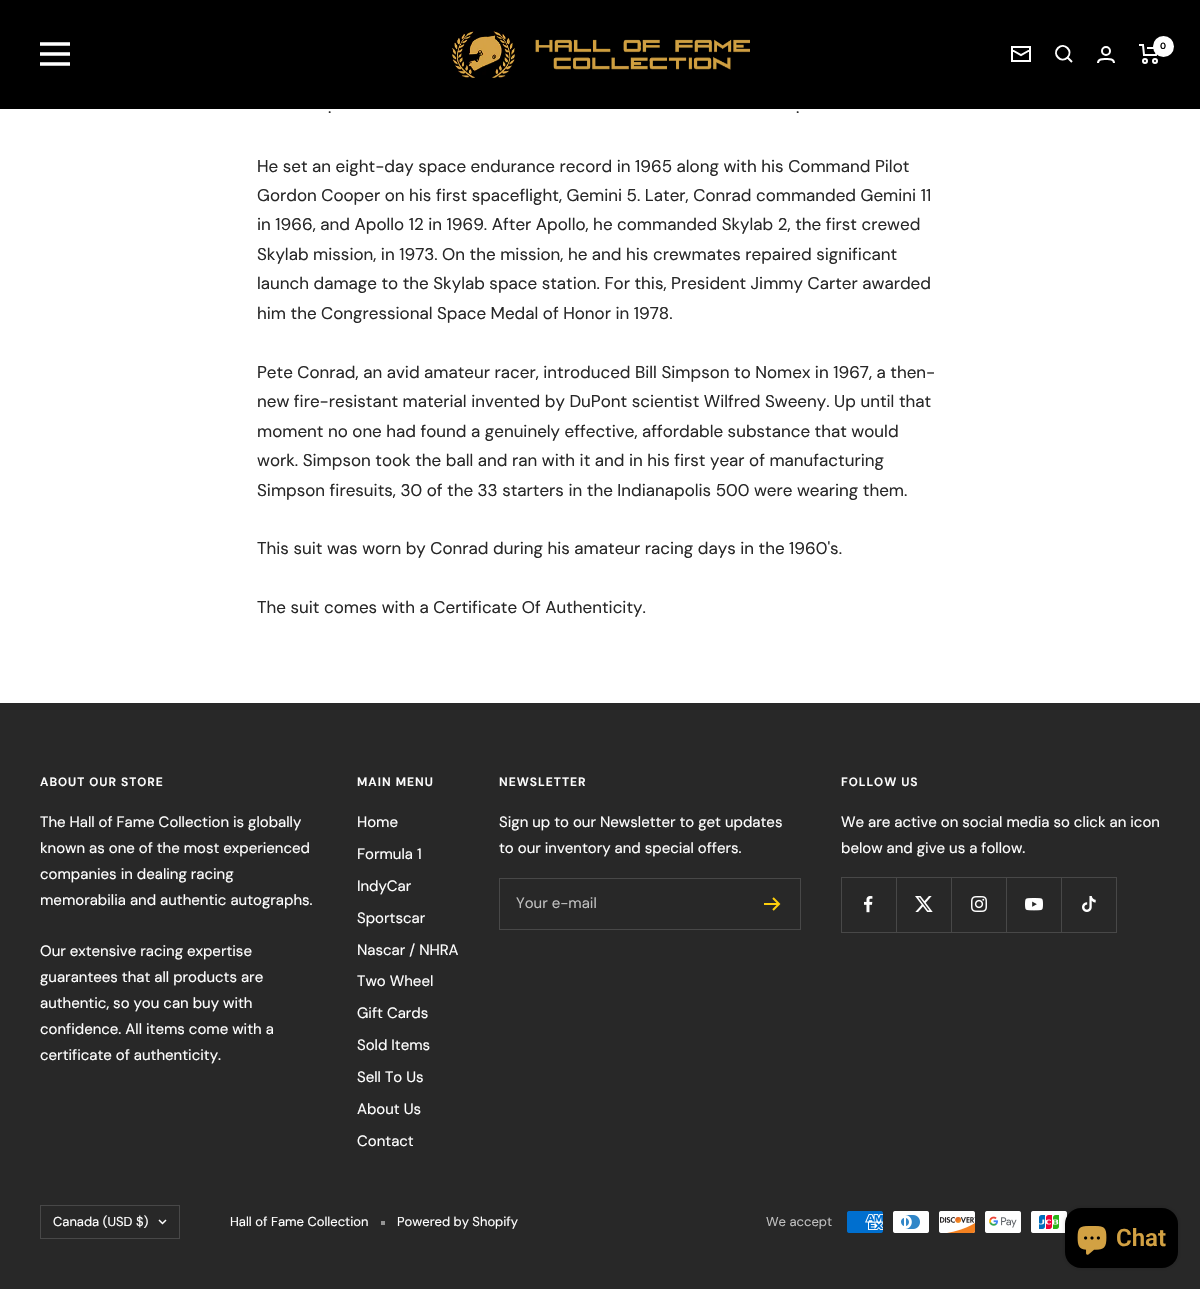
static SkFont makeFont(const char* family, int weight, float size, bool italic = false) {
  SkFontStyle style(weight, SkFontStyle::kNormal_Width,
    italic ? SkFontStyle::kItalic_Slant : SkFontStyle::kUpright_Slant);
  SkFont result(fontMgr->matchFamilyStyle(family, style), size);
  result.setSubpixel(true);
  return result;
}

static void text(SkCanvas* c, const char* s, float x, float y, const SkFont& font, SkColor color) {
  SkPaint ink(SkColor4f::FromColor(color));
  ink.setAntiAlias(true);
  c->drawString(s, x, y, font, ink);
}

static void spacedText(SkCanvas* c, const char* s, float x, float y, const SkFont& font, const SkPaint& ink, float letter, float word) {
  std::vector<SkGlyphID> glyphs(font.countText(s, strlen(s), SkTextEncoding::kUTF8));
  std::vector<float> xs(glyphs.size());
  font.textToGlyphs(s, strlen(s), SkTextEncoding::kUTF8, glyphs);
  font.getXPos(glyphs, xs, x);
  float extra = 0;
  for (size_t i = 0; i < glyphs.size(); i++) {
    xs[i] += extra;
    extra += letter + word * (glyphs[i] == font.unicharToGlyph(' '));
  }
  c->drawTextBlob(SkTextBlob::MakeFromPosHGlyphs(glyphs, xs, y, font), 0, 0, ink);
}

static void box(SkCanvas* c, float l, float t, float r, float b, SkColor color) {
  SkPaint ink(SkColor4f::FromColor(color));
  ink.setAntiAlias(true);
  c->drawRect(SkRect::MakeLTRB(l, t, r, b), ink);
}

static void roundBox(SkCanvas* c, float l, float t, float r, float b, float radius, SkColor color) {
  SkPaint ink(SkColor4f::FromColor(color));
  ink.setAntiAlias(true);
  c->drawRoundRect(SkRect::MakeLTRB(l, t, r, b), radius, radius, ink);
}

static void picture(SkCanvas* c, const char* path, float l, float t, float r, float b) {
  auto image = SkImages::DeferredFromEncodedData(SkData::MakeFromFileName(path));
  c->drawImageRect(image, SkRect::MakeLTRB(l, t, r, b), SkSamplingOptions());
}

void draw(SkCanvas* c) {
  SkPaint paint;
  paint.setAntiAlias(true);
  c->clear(0xffffffff);
  box(c, 0, 0, 1200, 109, 0xff000000);
  paint.setStyle(SkPaint::kStroke_Style);
  paint.setStrokeWidth(3.3f);
  paint.setColor(0xffffffff);
  c->drawPath(SkPathBuilder().moveTo(40, 44).lineTo(70, 44).moveTo(40, 64).lineTo(70, 64).close().moveTo(40, 54).lineTo(70, 54).close().detach(), paint);
  picture(c, "img_01.png", 451, 30, 750, 78);
  paint.setStrokeWidth(2);
  c->drawPath(SkPathBuilder().moveTo(1030, 50).lineTo(1021, 55).lineTo(1012, 50).moveTo(1012, 47).lineTo(1030, 47).lineTo(1030, 61).lineTo(1012, 61).close().moveTo(1067.5f, 57.5f).cubicTo(1073.5f, 51, 1064.5f, 42, 1058, 48).cubicTo(1052, 54.5f, 1061, 63.5f, 1067.5f, 57.5f).close().moveTo(1067.5f, 57.5f).lineTo(1072, 62).detach(), paint);
  c->drawCircle(1106, 51, 4, paint);
  c->drawPath(SkPathBuilder().moveTo(1098, 63).cubicTo(1098, 58.5f, 1103, 59, 1106, 59).cubicTo(1109, 59, 1114, 58.5f, 1114, 63).moveTo(1139, 45).lineTo(1143, 45).lineTo(1144, 55).lineTo(1156, 55).lineTo(1158, 48).lineTo(1147, 48).detach(), paint);
  paint.setStyle(SkPaint::kFill_Style);
  c->drawCircle(1163.5f, 46.5f, 10.5f, paint);
  SkFont face1 = makeFont("DM Sans", 600, 9);
  text(c, "0", 1160, 49, face1, 0xff000000);
  paint.setStyle(SkPaint::kStroke_Style);
  c->drawCircle(1145, 61, 2, paint);
  c->drawCircle(1155, 61, 2, paint);
  SkFont face2 = makeFont("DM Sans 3", 400, 17);
  text(c, ".", 328, 113, face2, 0xff282828);
  text(c, ".", 796, 113, face2, 0xff282828);
  text(c, "He set an eight-day space endurance record in 1965 along with his Command Pilot", 257, 172, face2, 0xff282828);
  text(c, "Gordon Cooper on his first spaceflight, Gemini 5. Later, Conrad commanded Gemini 11", 257, 201, face2, 0xff282828);
  text(c, "in 1966, and Apollo 12 in 1969. After Apollo, he commanded Skylab 2, the first crewed", 257, 230, face2, 0xff282828);
  text(c, "Skylab mission, in 1973. On the mission, he and his crewmates repaired significant", 257, 260, face2, 0xff282828);
  text(c, "launch damage to the Skylab space station. For this, President Jimmy Carter awarded", 257, 289, face2, 0xff282828);
  text(c, "him the Congressional Space Medal of Honor in 1978.", 257, 319, face2, 0xff282828);
  text(c, "Pete Conrad, an avid amateur racer, introduced Bill Simpson to Nomex in 1967, a then-", 257, 378, face2, 0xff282828);
  text(c, "new fire-resistant material invented by DuPont scientist Wilfred Sweeny. Up until that", 257, 407, face2, 0xff282828);
  text(c, "moment no one had found a genuinely effective, affordable substance that would", 257, 437, face2, 0xff282828);
  text(c, "work. Simpson took the ball and ran with it and in his first year of manufacturing", 257, 466, face2, 0xff282828);
  text(c, "Simpson firesuits, 30 of the 33 starters in the Indianapolis 500 were wearing them.", 257, 496, face2, 0xff282828);
  text(c, "This suit was worn by Conrad during his amateur racing days in the 1960's.", 257, 554, face2, 0xff282828);
  text(c, "The suit comes with a Certificate Of Authenticity.", 257, 613, face2, 0xff282828);
  box(c, 0, 703, 1200, 1289, 0xff282828);
  SkFont face3 = makeFont("DM Sans", 600, 12);
  paint.setStyle(SkPaint::kFill_Style);
  spacedText(c, "ABOUT OUR STORE", 40, 786, face3, paint, 1, 0);
  SkFont face4 = makeFont("DM Sans", 400, 15);
  text(c, "The Hall of Fame Collection is globally", 40, 827, face4, 0xffffffff);
  text(c, "known as one of the most experienced", 40, 853, face4, 0xffffffff);
  text(c, "companies in dealing racing", 40, 879, face4, 0xffffffff);
  text(c, "memorabilia and authentic autographs.", 40, 905, face4, 0xffffffff);
  text(c, "Our extensive racing expertise", 40, 956, face4, 0xffffffff);
  text(c, "guarantees that all products are", 40, 982, face4, 0xffffffff);
  text(c, "authentic, so you can buy with", 40, 1008, face4, 0xffffffff);
  text(c, "confidence. All items come with a", 40, 1034, face4, 0xffffffff);
  text(c, "certificate of authenticity.", 40, 1060, face4, 0xffffffff);
  spacedText(c, "MAIN MENU", 357, 786, face3, paint, 1, 0);
  text(c, "Home", 357, 827, face4, 0xffffffff);
  text(c, "Formula 1", 357, 859, face4, 0xffffffff);
  text(c, "IndyCar", 357, 891, face4, 0xffffffff);
  text(c, "Sportscar", 357, 923, face4, 0xffffffff);
  text(c, "Nascar / NHRA", 357, 955, face4, 0xffffffff);
  text(c, "Two Wheel", 357, 986, face4, 0xffffffff);
  text(c, "Gift Cards", 357, 1018, face4, 0xffffffff);
  text(c, "Sold Items", 357, 1050, face4, 0xffffffff);
  text(c, "Sell To Us", 357, 1082, face4, 0xffffffff);
  text(c, "About Us", 357, 1114, face4, 0xffffffff);
  text(c, "Contact", 357, 1146, face4, 0xffffffff);
  spacedText(c, "NEWSLETTER", 499, 786, face3, paint, 1, 0);
  text(c, "Sign up to our Newsletter to get updates", 499, 827, face4, 0xffffffff);
  text(c, "to our inventory and special offers.", 499, 853, face4, 0xffffffff);
  paint.setStyle(SkPaint::kStroke_Style);
  paint.setStrokeWidth(1);
  paint.setColor(0xff484848);
  c->drawRect(SkRect::MakeLTRB(499.5f, 878.5f, 800.5f, 929.5f), paint);
  text(c, "Your e-mail", 516, 908, face4, 0xffbfbfbf);
  paint.setStrokeWidth(2);
  paint.setColor(0xfffdce0c);
  c->drawPath(SkPathBuilder().moveTo(764, 904).lineTo(779, 904).moveTo(773, 898).lineTo(779, 904).lineTo(773, 910).detach(), paint);
  paint.setStyle(SkPaint::kFill_Style);
  paint.setColor(0xffffffff);
  spacedText(c, "FOLLOW US", 841, 786, face3, paint, 1, 0);
  text(c, "We are active on social media so click an icon", 841, 827, face4, 0xffffffff);
  text(c, "below and give us a follow.", 841, 853, face4, 0xffffffff);
  paint.setColor(0xff484848);
  c->drawPath(SkPathBuilder().moveTo(842, 932).lineTo(842, 933).lineTo(897, 933).lineTo(897, 878).lineTo(896, 878).lineTo(896, 932).close().detach(), paint);
  box(c, 841, 932, 842, 933, 0xff484848);
  box(c, 841, 877, 897, 878, 0xff484848);
  box(c, 841, 877, 842, 932, 0xff484848);
  picture(c, "img_02.png", 864, 896, 873, 913);
  c->drawPath(SkPathBuilder().moveTo(897, 932).lineTo(897, 933).lineTo(952, 933).lineTo(952, 878).lineTo(951, 878).lineTo(951, 932).close().detach(), paint);
  box(c, 896, 877, 952, 878, 0xff484848);
  picture(c, "img_03.png", 915, 896, 933, 912);
  c->drawPath(SkPathBuilder().moveTo(952, 932).lineTo(952, 933).lineTo(1007, 933).lineTo(1007, 878).lineTo(1006, 878).lineTo(1006, 932).close().detach(), paint);
  box(c, 951, 877, 1007, 878, 0xff484848);
  picture(c, "img_04.png", 971, 896, 987, 912);
  c->drawPath(SkPathBuilder().moveTo(1007, 932).lineTo(1007, 933).lineTo(1062, 933).lineTo(1062, 878).lineTo(1061, 878).lineTo(1061, 932).close().detach(), paint);
  box(c, 1006, 877, 1062, 878, 0xff484848);
  picture(c, "img_05.png", 1025, 898, 1043, 911);
  c->drawPath(SkPathBuilder().moveTo(1062, 932).lineTo(1062, 933).lineTo(1117, 933).lineTo(1117, 878).lineTo(1116, 878).lineTo(1116, 932).close().detach(), paint);
  box(c, 1061, 877, 1117, 878, 0xff484848);
  picture(c, "img_06.png", 1082, 896, 1096, 912);
  paint.setStyle(SkPaint::kStroke_Style);
  paint.setStrokeWidth(1);
  c->drawRect(SkRect::MakeLTRB(40.5f, 1205.5f, 179.5f, 1238.5f), paint);
  SkFont face5 = makeFont("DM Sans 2", 400, 13);
  text(c, "Canada (USD $)", 53, 1226, face5, 0xffffffff);
  paint.setStrokeWidth(1.5f);
  paint.setColor(0xffffffff);
  c->drawPath(SkPathBuilder().moveTo(159, 1220).lineTo(162.5f, 1223.5f).lineTo(166, 1220).detach(), paint);
  text(c, "Hall of Fame Collection", 230, 1226, face5, 0xffffffff);
  box(c, 381, 1221, 385, 1225, 0xff949494);
  text(c, "Powered by Shopify", 397, 1226, face5, 0xffffffff);
  text(c, "We accept", 766, 1226, face5, 0xffbfbfbf);
  picture(c, "img_07.png", 847, 1211, 883, 1233);
  picture(c, "img_08.png", 893, 1211, 929, 1233);
  picture(c, "img_09.png", 939, 1211, 975, 1233);
  picture(c, "img_10.png", 985, 1211, 1021, 1233);
  picture(c, "img_11.png", 1031, 1211, 1067, 1233);
  paint.setStyle(SkPaint::kFill_Style);
  paint.setColor(0x26000000);
  paint.setMaskFilter(SkMaskFilter::MakeBlur(kNormal_SkBlurStyle, 2.5f));
  c->drawRoundRect(SkRect::MakeLTRB(1065, 1208, 1178, 1268), 16, 16, paint);
  paint.setMaskFilter(nullptr);
  roundBox(c, 1065, 1208, 1178, 1268, 16, 0xff000000);
  picture(c, "img_12.png", 1077, 1226, 1107, 1255);
  SkFont face6 = makeFont("Roboto", 600, 24);
  text(c, "Chat", 1116, 1246, face6, 0xffd2a143);
}
